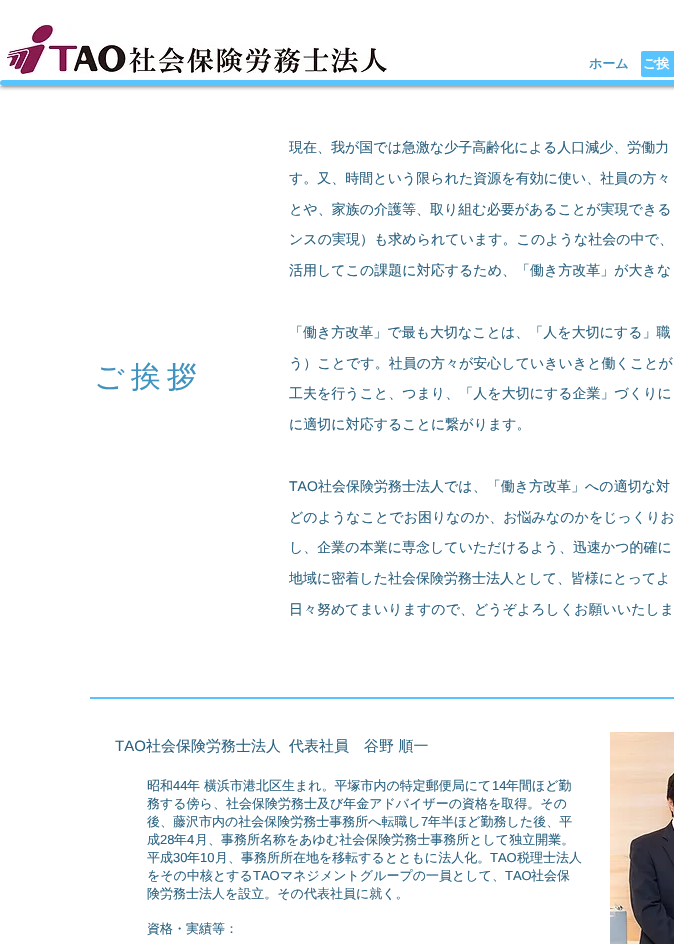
static SkFont makeFont(const char* family, int weight, float size, bool italic = false) {
  SkFontStyle style(weight, SkFontStyle::kNormal_Width,
    italic ? SkFontStyle::kItalic_Slant : SkFontStyle::kUpright_Slant);
  SkFont result(fontMgr->matchFamilyStyle(family, style), size);
  result.setSubpixel(true);
  return result;
}

static void text(SkCanvas* c, const char* s, float x, float y, const SkFont& font, SkColor color) {
  SkPaint ink(SkColor4f::FromColor(color));
  ink.setAntiAlias(true);
  c->drawString(s, x, y, font, ink);
}

static void spacedText(SkCanvas* c, const char* s, float x, float y, const SkFont& font, const SkPaint& ink, float letter, float word) {
  std::vector<SkGlyphID> glyphs(font.countText(s, strlen(s), SkTextEncoding::kUTF8));
  std::vector<float> xs(glyphs.size());
  font.textToGlyphs(s, strlen(s), SkTextEncoding::kUTF8, glyphs);
  font.getXPos(glyphs, xs, x);
  float extra = 0;
  for (size_t i = 0; i < glyphs.size(); i++) {
    xs[i] += extra;
    extra += letter + word * (glyphs[i] == font.unicharToGlyph(' '));
  }
  c->drawTextBlob(SkTextBlob::MakeFromPosHGlyphs(glyphs, xs, y, font), 0, 0, ink);
}

static void box(SkCanvas* c, float l, float t, float r, float b, SkColor color) {
  SkPaint ink(SkColor4f::FromColor(color));
  ink.setAntiAlias(true);
  c->drawRect(SkRect::MakeLTRB(l, t, r, b), ink);
}

static void roundBox(SkCanvas* c, float l, float t, float r, float b, float radius, SkColor color) {
  SkPaint ink(SkColor4f::FromColor(color));
  ink.setAntiAlias(true);
  c->drawRoundRect(SkRect::MakeLTRB(l, t, r, b), radius, radius, ink);
}

static void picture(SkCanvas* c, const char* path, float l, float t, float r, float b) {
  auto image = SkImages::DeferredFromEncodedData(SkData::MakeFromFileName(path));
  c->drawImageRect(image, SkRect::MakeLTRB(l, t, r, b), SkSamplingOptions());
}

void draw(SkCanvas* c) {
  SkPaint paint;
  paint.setAntiAlias(true);
  c->clear(0xffffffff);
  c->save();
  c->clipRect(SkRect::MakeLTRB(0, 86, 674, 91));
  paint.setColor(0xb3000000);
  paint.setMaskFilter(SkMaskFilter::MakeBlur(kNormal_SkBlurStyle, 2.5f));
  c->drawRect(SkRect::MakeLTRB(0, 0, 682, 86), paint);
  paint.setMaskFilter(nullptr);
  c->restore();
  picture(c, "img_01.png", 7, 25, 387, 74);
  SkFont face1 = makeFont("WenQuanYi Zen Hei", 700, 13);
  text(c, "ホーム", 589, 68, face1, 0xff4193bf);
  roundBox(c, 641, 51, 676, 77, 2, 0xff57c4ff);
  text(c, "ご挨", 643, 68, face1, 0xffffffff);
  roundBox(c, 0, 80, 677, 86, 3, 0xff59c5ff);
  SkFont face2 = makeFont("WenQuanYi Zen Hei", 500, 30);
  paint.setColor(0xff4193bf);
  spacedText(c, "ご挨拶", 94, 387, face2, paint, 6, 0);
  SkFont face3 = makeFont("WenQuanYi Zen Hei", 500, 14);
  text(c, "現在、我が国では急激な少子高齢化による人口減少、労働力", 289, 152, face3, 0xff2b6280);
  text(c, "す。又、時間という限られた資源を有効に使い、社員の方々", 289, 183, face3, 0xff2b6280);
  text(c, "とや、家族の介護等、取り組む必要があることが実現できる", 289, 214, face3, 0xff2b6280);
  text(c, "ンスの実現）も求められています。このような社会の中で、", 289, 244, face3, 0xff2b6280);
  text(c, "活用してこの課題に対応するため、「働き方改革」が大きな", 289, 275, face3, 0xff2b6280);
  text(c, "「働き方改革」で最も大切なことは、「人を大切にする」職", 289, 337, face3, 0xff2b6280);
  text(c, "う）ことです。社員の方々が安心していきいきと働くことが", 289, 368, face3, 0xff2b6280);
  text(c, "工夫を行うこと、つまり、「人を大切にする企業」づくりに", 289, 398, face3, 0xff2b6280);
  text(c, "に適切に対応することに繋がります。", 289, 429, face3, 0xff2b6280);
  SkFont face4 = makeFont("Liberation Sans", 400, 14);
  text(c, "TAO", 289, 491, face4, 0xff2b6280);
  text(c, "社会保険労務士法人では、「働き方改革」への適切な対", 318, 491, face3, 0xff2b6280);
  text(c, "どのようなことでお困りなのか、お悩みなのかをじっくりお", 289, 522, face3, 0xff2b6280);
  text(c, "し、企業の本業に専念していただけるよう、迅速かつ的確に", 289, 552, face3, 0xff2b6280);
  text(c, "地域に密着した社会保険労務士法人として、皆様にとってよ", 289, 583, face3, 0xff2b6280);
  text(c, "日々努めてまいりますので、どうぞよろしくお願いいたしま", 289, 614, face3, 0xff2b6280);
  box(c, 90, 697, 674, 699, 0xff57c4ff);
  SkFont face5 = makeFont("Liberation Sans", 400, 15);
  text(c, "TAO", 115, 751, face5, 0xff2b6280);
  SkFont face6 = makeFont("WenQuanYi Zen Hei", 500, 15);
  text(c, "社会保険労務士法人", 146, 751, face6, 0xff2b6280);
  text(c, "代表社員　谷野 順一", 289, 751, face6, 0xff2b6280);
  picture(c, "img_02.png", 610, 732, 674, 944);
  SkFont face7 = makeFont("WenQuanYi Zen Hei", 500, 13);
  text(c, "昭和", 147, 790, face7, 0xff2b6280);
  SkFont face8 = makeFont("Liberation Sans", 400, 13);
  text(c, "44", 173, 790, face8, 0xff2b6280);
  text(c, "年 横浜市港北区生まれ。平塚市内の特定郵便局にて", 187, 790, face7, 0xff2b6280);
  text(c, "14", 492, 790, face8, 0xff2b6280);
  text(c, "年間ほど勤", 506, 790, face7, 0xff2b6280);
  text(c, "務する傍ら、社会保険労務士及び年金アドバイザーの資格を取得。その", 147, 808, face7, 0xff2b6280);
  text(c, "後、藤沢市内の社会保険労務士事務所へ転職し", 147, 826, face7, 0xff2b6280);
  text(c, "7", 421, 826, face8, 0xff2b6280);
  text(c, "年半ほど勤務した後、平", 428, 826, face7, 0xff2b6280);
  text(c, "成", 147, 844, face7, 0xff2b6280);
  text(c, "28", 160, 844, face8, 0xff2b6280);
  text(c, "年", 174, 844, face7, 0xff2b6280);
  text(c, "4", 187, 844, face8, 0xff2b6280);
  text(c, "月、事務所名称をあゆむ社会保険労務士事務所として独立開業。", 195, 844, face7, 0xff2b6280);
  text(c, "平成", 147, 862, face7, 0xff2b6280);
  text(c, "30", 173, 862, face8, 0xff2b6280);
  text(c, "年", 187, 862, face7, 0xff2b6280);
  text(c, "10", 200, 862, face8, 0xff2b6280);
  text(c, "月、事務所所在地を移転するとともに法人化。", 215, 862, face7, 0xff2b6280);
  text(c, "TAO", 490, 862, face8, 0xff2b6280);
  text(c, "税理士法人", 517, 862, face7, 0xff2b6280);
  text(c, "をその中核とする", 147, 880, face7, 0xff2b6280);
  text(c, "TAO", 253, 880, face8, 0xff2b6280);
  text(c, "マネジメントグループの一員として、", 280, 880, face7, 0xff2b6280);
  text(c, "TAO", 505, 880, face8, 0xff2b6280);
  text(c, "社会保", 531, 880, face7, 0xff2b6280);
  text(c, "険労務士法人を設立。その代表社員に就く。", 147, 898, face7, 0xff2b6280);
  text(c, "資格・実績等：", 147, 933, face7, 0xff2b6280);
}
